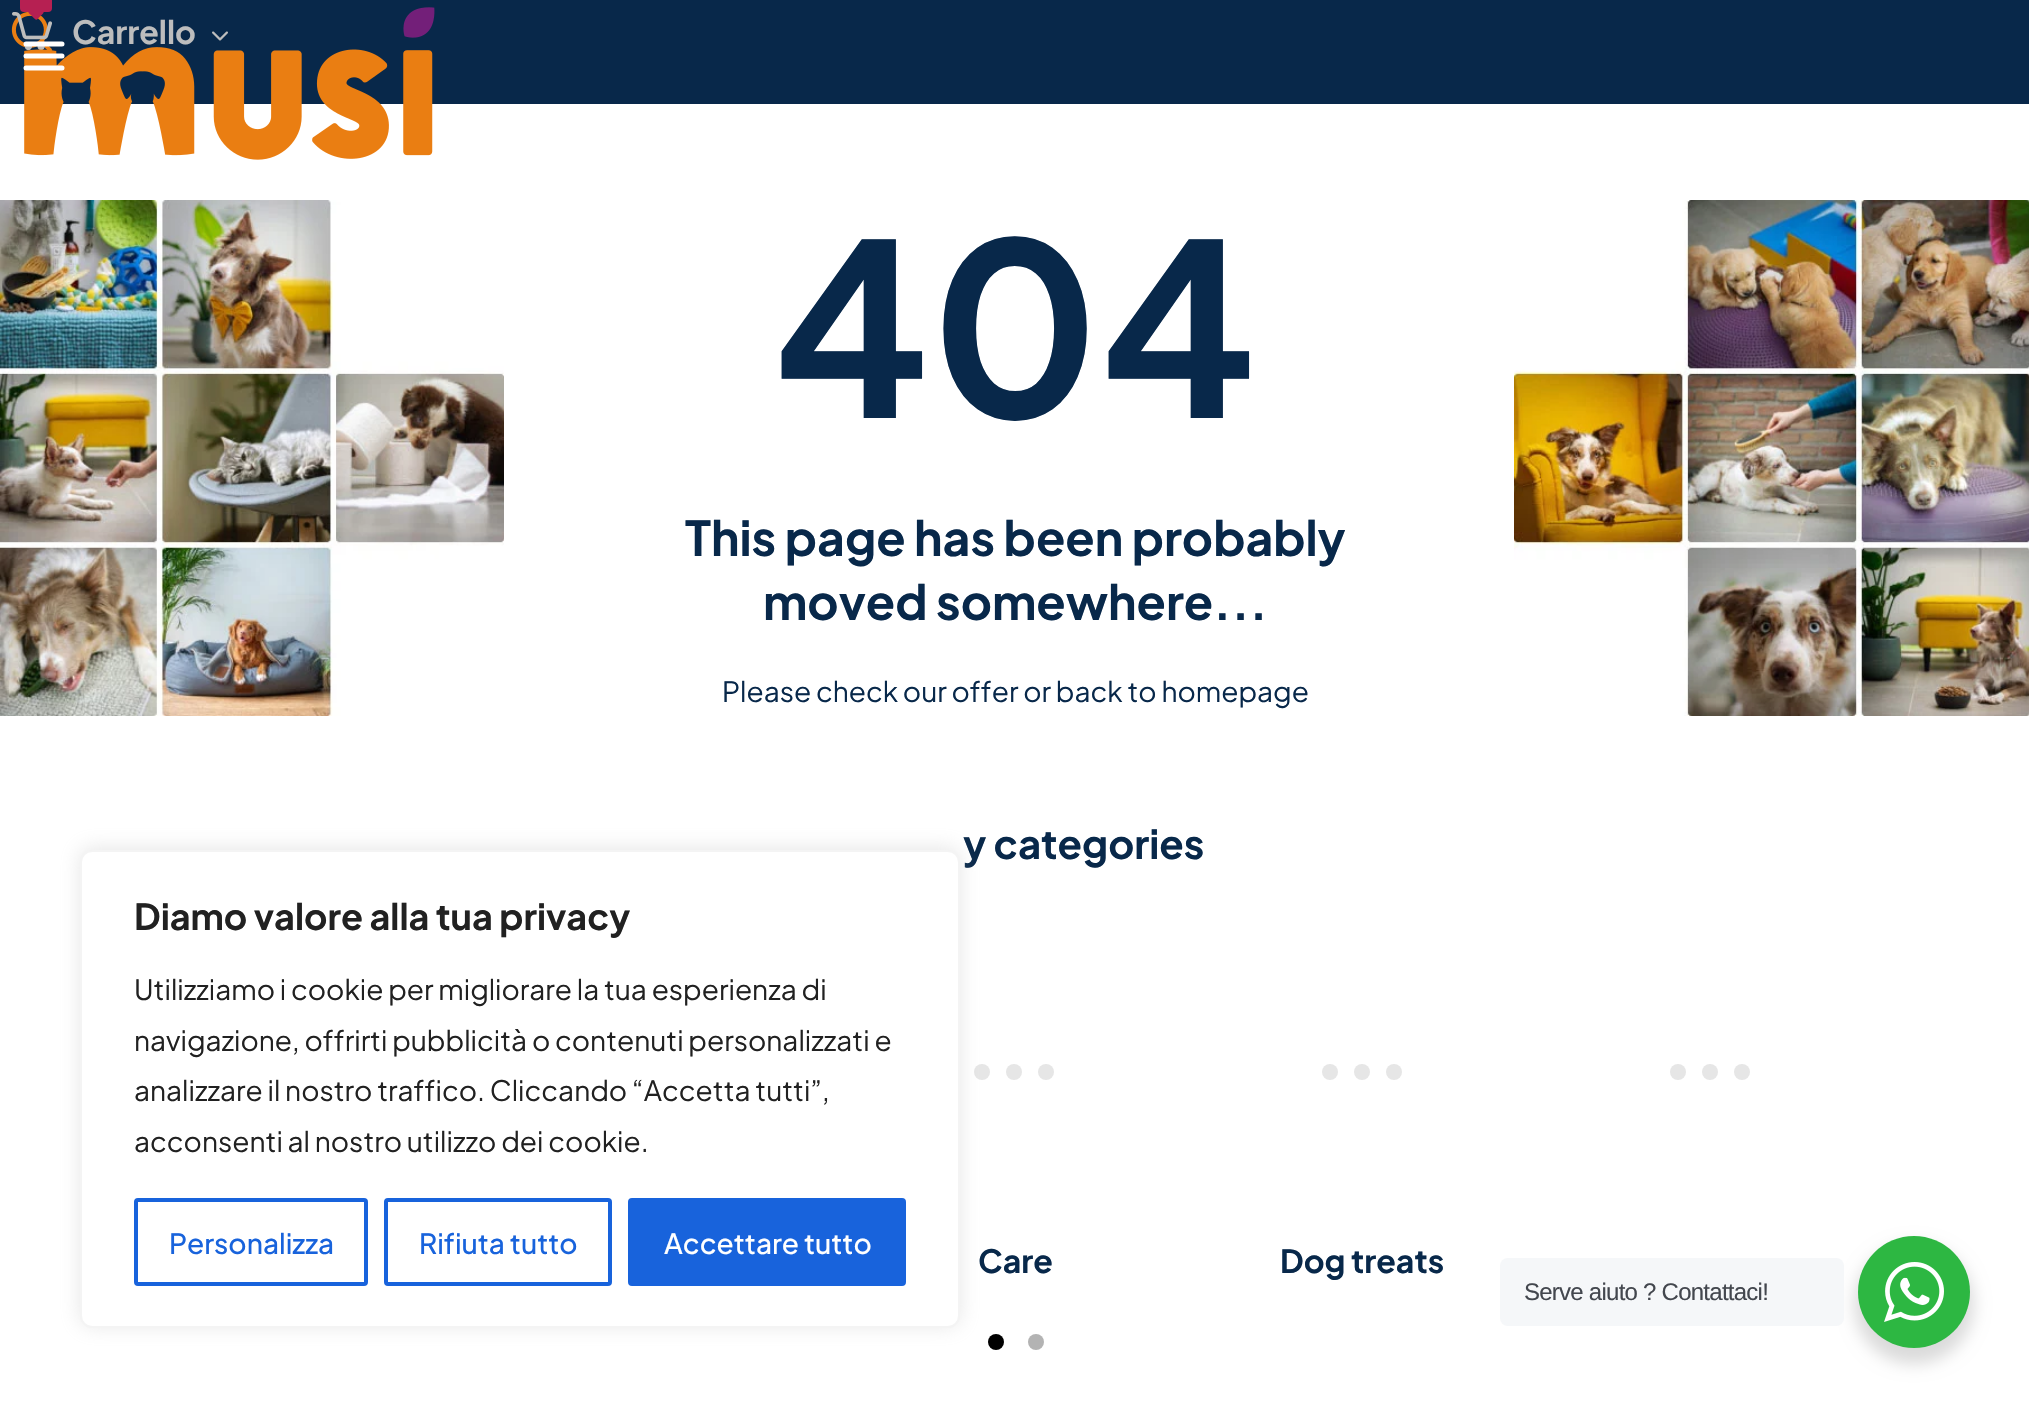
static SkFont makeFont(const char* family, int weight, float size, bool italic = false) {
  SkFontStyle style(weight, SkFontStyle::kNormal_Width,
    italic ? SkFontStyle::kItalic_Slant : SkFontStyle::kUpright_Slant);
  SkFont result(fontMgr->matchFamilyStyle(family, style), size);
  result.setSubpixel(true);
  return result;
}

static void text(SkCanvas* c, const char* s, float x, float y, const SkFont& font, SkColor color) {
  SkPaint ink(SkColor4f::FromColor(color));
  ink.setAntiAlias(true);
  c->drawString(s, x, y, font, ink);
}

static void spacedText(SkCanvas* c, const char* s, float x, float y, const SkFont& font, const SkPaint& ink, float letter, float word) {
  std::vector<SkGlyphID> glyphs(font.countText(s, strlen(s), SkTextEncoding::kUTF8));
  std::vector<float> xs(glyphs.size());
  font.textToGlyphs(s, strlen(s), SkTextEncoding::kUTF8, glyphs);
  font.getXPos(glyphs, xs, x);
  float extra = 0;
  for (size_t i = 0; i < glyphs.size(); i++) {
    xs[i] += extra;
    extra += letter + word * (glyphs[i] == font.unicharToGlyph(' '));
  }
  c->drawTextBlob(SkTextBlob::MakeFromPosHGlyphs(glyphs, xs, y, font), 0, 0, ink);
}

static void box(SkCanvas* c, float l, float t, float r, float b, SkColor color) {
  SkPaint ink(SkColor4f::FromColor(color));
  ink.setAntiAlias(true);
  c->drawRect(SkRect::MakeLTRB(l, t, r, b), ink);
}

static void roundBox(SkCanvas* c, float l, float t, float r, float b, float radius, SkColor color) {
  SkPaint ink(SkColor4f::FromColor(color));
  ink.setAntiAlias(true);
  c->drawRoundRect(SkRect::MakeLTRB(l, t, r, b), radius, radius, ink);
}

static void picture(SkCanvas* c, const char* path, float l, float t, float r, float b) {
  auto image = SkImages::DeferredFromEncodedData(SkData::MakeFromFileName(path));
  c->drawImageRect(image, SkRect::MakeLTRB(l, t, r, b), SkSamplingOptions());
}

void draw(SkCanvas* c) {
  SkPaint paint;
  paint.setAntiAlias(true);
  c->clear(0xffffffff);
  box(c, 0, 0, 2029, 104, 0xff08284a);
  picture(c, "img_02.png", 11, 12, 52, 51);
  roundBox(c, 20, -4, 52, 12, 4, 0xffb62052);
  picture(c, "img_03.png", 12, 12, 52, 51);
  paint.setColor(0xffb62052);
  c->drawPath(SkPathBuilder().moveTo(37.5f, 5).lineTo(42, 9.5f).cubicTo(45, 12.5f, 43.5f, 13, 41, 15.5f).cubicTo(36, 20.5f, 37, 21.5f, 32, 16).cubicTo(28, 12.5f, 27, 12.5f, 31, 8.5f).cubicTo(32, 7.5f, 35, 3, 37.5f, 5).close().detach(), paint);
  SkFont face1 = makeFont("Plus Jakarta Sans", 700, 32);
  text(c, "Carrello", 72, 44, face1, 0xffbdbdbd);
  picture(c, "img_04.png", 212, 31, 228, 41);
  picture(c, "img_01.png", 24, 7, 435, 160);
  paint.setStyle(SkPaint::kStroke_Style);
  paint.setStrokeWidth(5);
  paint.setStrokeCap(SkPaint::kRound_Cap);
  paint.setStrokeJoin(SkPaint::kRound_Join);
  paint.setColor(0xffffffff);
  c->drawPath(SkPathBuilder().moveTo(26, 44).lineTo(62, 44).moveTo(26, 56).lineTo(62, 56).moveTo(26, 68).lineTo(62, 68).detach(), paint);
  picture(c, "img_05.png", 0, 200, 504, 716);
  SkFont face2 = makeFont("Plus Jakarta Sans", 700, 240);
  text(c, "404", 773, 418, face2, 0xff08284a);
  SkFont face3 = makeFont("Plus Jakarta Sans", 700, 48);
  text(c, "This page has been probably", 685, 556, face3, 0xff08284a);
  text(c, "moved somewhere...", 763, 620, face3, 0xff08284a);
  SkFont face4 = makeFont("Plus Jakarta Sans", 400, 28);
  text(c, "Please check our offer or back to homepage", 722, 702, face4, 0xff08284a);
  picture(c, "img_06.png", 1514, 200, 2029, 716);
  SkFont face5 = makeFont("Plus Jakarta Sans", 700, 40);
  text(c, "y categories", 963, 859, face5, 0xff08284a);
  paint.setStyle(SkPaint::kFill_Style);
  paint.setColor(0xffe6e6e6);
  c->drawCircle(1678, 1072, 8, paint);
  c->drawCircle(1710, 1072, 8, paint);
  c->drawCircle(1742, 1072, 8, paint);
  c->drawCircle(982, 1072, 8, paint);
  c->drawCircle(1014, 1072, 8, paint);
  c->drawCircle(1046, 1072, 8, paint);
  text(c, "Care", 978, 1273, face1, 0xff08284a);
  c->drawCircle(1330, 1072, 8, paint);
  c->drawCircle(1362, 1072, 8, paint);
  c->drawCircle(1394, 1072, 8, paint);
  text(c, "Dog treats", 1280, 1273, face1, 0xff08284a);
  paint.setColor(0xff000000);
  c->drawCircle(996, 1342, 8, paint);
  paint.setColor(0xffb3b3b3);
  c->drawCircle(1036, 1342, 8, paint);
  paint.setColor(0x4dacabab);
  paint.setMaskFilter(SkMaskFilter::MakeBlur(kNormal_SkBlurStyle, 10));
  c->drawRoundRect(SkRect::MakeLTRB(80, 848, 960, 1326), 12, 12, paint);
  paint.setMaskFilter(nullptr);
  paint.setColor(0xffffffff);
  c->drawRoundRect(SkRect::MakeLTRB(81, 851, 959, 1327), 11, 11, paint);
  paint.setStyle(SkPaint::kStroke_Style);
  paint.setStrokeWidth(2);
  paint.setStrokeCap(SkPaint::kButt_Cap);
  paint.setStrokeJoin(SkPaint::kMiter_Join);
  paint.setColor(0xfff4f4f4);
  c->drawRoundRect(SkRect::MakeLTRB(81, 851, 959, 1327), 11, 11, paint);
  SkFont face6 = makeFont("Plus Jakarta Sans", 700, 36);
  text(c, "Diamo valore alla tua privacy", 134, 930, face6, 0xff212121);
  text(c, "Utilizziamo i cookie per migliorare la tua esperienza di", 134, 1000, face4, 0xff212121);
  text(c, "navigazione, offrirti pubblicità o contenuti personalizzati e", 134, 1051, face4, 0xff212121);
  text(c, "analizzare il nostro traffico. Cliccando “Accetta tutti”,", 134, 1101, face4, 0xff212121);
  text(c, "acconsenti al nostro utilizzo dei cookie.", 134, 1152, face4, 0xff212121);
  paint.setStrokeWidth(4);
  paint.setColor(0xff1863dc);
  c->drawRoundRect(SkRect::MakeLTRB(136, 1200, 366, 1284), 2, 2, paint);
  SkFont face7 = makeFont("Plus Jakarta Sans", 500, 28);
  text(c, "Personalizza", 169, 1254, face7, 0xff1863dc);
  c->drawRoundRect(SkRect::MakeLTRB(386, 1200, 610, 1284), 2, 2, paint);
  text(c, "Rifiuta tutto", 419, 1254, face7, 0xff1863dc);
  paint.setStyle(SkPaint::kFill_Style);
  c->drawRoundRect(SkRect::MakeLTRB(630, 1200, 904, 1284), 2, 2, paint);
  paint.setStyle(SkPaint::kStroke_Style);
  c->drawRoundRect(SkRect::MakeLTRB(630, 1200, 904, 1284), 2, 2, paint);
  text(c, "Accettare tutto", 664, 1254, face7, 0xffffffff);
  paint.setStyle(SkPaint::kFill_Style);
  paint.setColor(0x24000000);
  paint.setMaskFilter(SkMaskFilter::MakeBlur(kNormal_SkBlurStyle, 8));
  c->drawRoundRect(SkRect::MakeLTRB(1854, 1244, 1974, 1364), 60, 60, paint);
  paint.setMaskFilter(nullptr);
  roundBox(c, 1500, 1258, 1844, 1326, 8, 0xfff5f7f9);
  SkFont face8 = makeFont("Liberation Sans", 400, 24);
  paint.setColor(0xff43474e);
  spacedText(c, "Serve aiuto ? Contattaci!", 1524, 1300, face8, paint, -0.75f, 0);
  paint.setColor(0xff2db742);
  c->drawCircle(1914, 1292, 56, paint);
  picture(c, "img_07.png", 1884, 1262, 1944, 1322);
}
